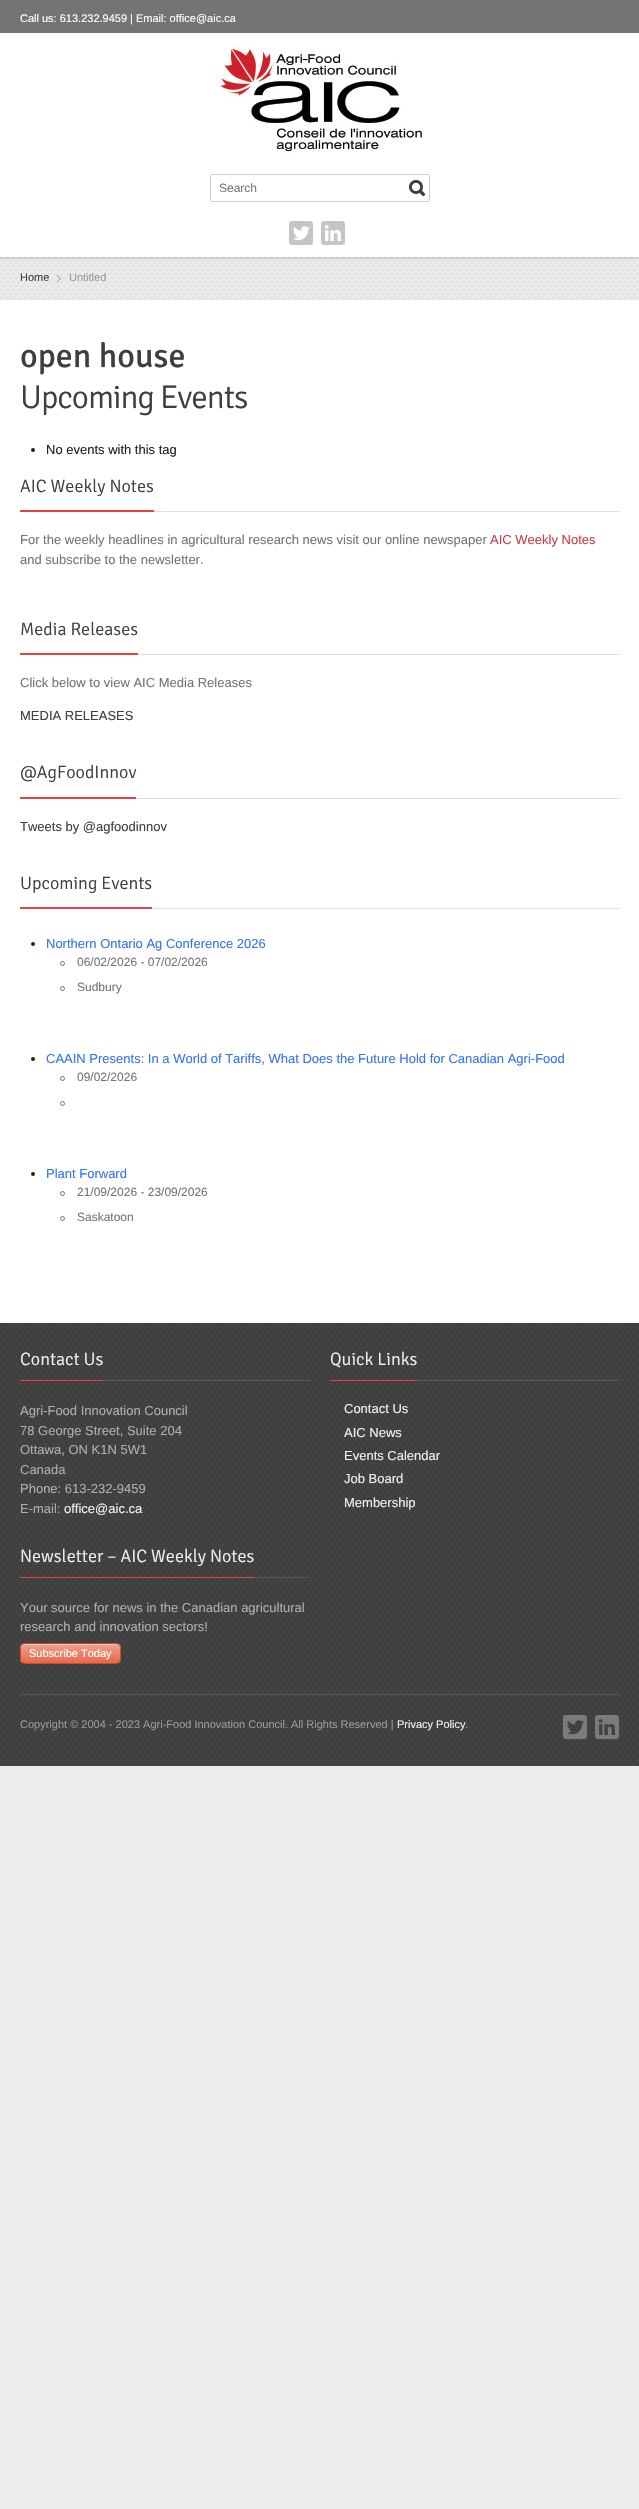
static SkFont makeFont(const char* family, int weight, float size, bool italic = false) {
  SkFontStyle style(weight, SkFontStyle::kNormal_Width,
    italic ? SkFontStyle::kItalic_Slant : SkFontStyle::kUpright_Slant);
  SkFont result(fontMgr->matchFamilyStyle(family, style), size);
  result.setSubpixel(true);
  return result;
}

static void text(SkCanvas* c, const char* s, float x, float y, const SkFont& font, SkColor color) {
  SkPaint ink(SkColor4f::FromColor(color));
  ink.setAntiAlias(true);
  c->drawString(s, x, y, font, ink);
}

static void spacedText(SkCanvas* c, const char* s, float x, float y, const SkFont& font, const SkPaint& ink, float letter, float word) {
  std::vector<SkGlyphID> glyphs(font.countText(s, strlen(s), SkTextEncoding::kUTF8));
  std::vector<float> xs(glyphs.size());
  font.textToGlyphs(s, strlen(s), SkTextEncoding::kUTF8, glyphs);
  font.getXPos(glyphs, xs, x);
  float extra = 0;
  for (size_t i = 0; i < glyphs.size(); i++) {
    xs[i] += extra;
    extra += letter + word * (glyphs[i] == font.unicharToGlyph(' '));
  }
  c->drawTextBlob(SkTextBlob::MakeFromPosHGlyphs(glyphs, xs, y, font), 0, 0, ink);
}

static void box(SkCanvas* c, float l, float t, float r, float b, SkColor color) {
  SkPaint ink(SkColor4f::FromColor(color));
  ink.setAntiAlias(true);
  c->drawRect(SkRect::MakeLTRB(l, t, r, b), ink);
}

static void roundBox(SkCanvas* c, float l, float t, float r, float b, float radius, SkColor color) {
  SkPaint ink(SkColor4f::FromColor(color));
  ink.setAntiAlias(true);
  c->drawRoundRect(SkRect::MakeLTRB(l, t, r, b), radius, radius, ink);
}

static void picture(SkCanvas* c, const char* path, float l, float t, float r, float b) {
  auto image = SkImages::DeferredFromEncodedData(SkData::MakeFromFileName(path));
  c->drawImageRect(image, SkRect::MakeLTRB(l, t, r, b), SkSamplingOptions());
}

void draw(SkCanvas* c) {
  SkPaint paint;
  paint.setAntiAlias(true);
  c->clear(0xffececec);
  box(c, 0, 33, 639, 1323, 0xffffffff);
  box(c, 0, 257, 639, 299, 0xffececec);
  picture(c, "img_05.png", 0, 257, 639, 299);
  c->save();
  c->clipRect(SkRect::MakeLTRB(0, 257, 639, 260));
  paint.setColor(0x4d000000);
  paint.setMaskFilter(SkMaskFilter::MakeBlur(kNormal_SkBlurStyle, 2));
  c->drawRect(SkRect::MakeLTRB(0, 0, 639, 257), paint);
  paint.setMaskFilter(nullptr);
  c->restore();
  box(c, 0, 0, 639, 33, 0xff747474);
  SkFont face1 = makeFont("Liberation Sans", 400, 11);
  text(c, "Call us: 613.232.9459 | Email: office@aic.ca", 20, 22, face1, 0xffffffff);
  picture(c, "img_01.png", 215, 44, 422, 154);
  paint.setStyle(SkPaint::kStroke_Style);
  paint.setStrokeWidth(1);
  paint.setColor(0xffcccccc);
  c->drawRoundRect(SkRect::MakeLTRB(210.5f, 174.5f, 429.5f, 201.5f), 1.5f, 1.5f, paint);
  roundBox(c, 211, 175, 429, 201, 2, 0xffffffff);
  SkFont face2 = makeFont("Liberation Sans", 400, 12);
  text(c, "Search", 219, 192, face2, 0xff747474);
  picture(c, "img_02.png", 409, 180, 425, 196);
  picture(c, "img_03.png", 289, 221, 313, 245);
  picture(c, "img_04.png", 321, 221, 345, 245);
  box(c, 0, 299, 639, 300, 0xffe6e6e6);
  text(c, "Home", 20, 281, face1, 0xff3f3f3f);
  picture(c, "img_06.png", 57, 275, 61, 282);
  text(c, "Untitled", 69, 281, face1, 0xff999999);
  SkFont face3 = makeFont("Signika", 400, 34);
  text(c, "open house", 20, 367, face3, 0xff3f3f3f);
  SkFont face4 = makeFont("Signika", 300, 33);
  paint.setStyle(SkPaint::kFill_Style);
  paint.setColor(0xff3f3f3f);
  spacedText(c, "Upcoming Events", 20, 408, face4, paint, -1, 0);
  paint.setColor(0xff212121);
  c->drawCircle(33, 450, 2, paint);
  SkFont face5 = makeFont("Liberation Sans", 400, 13);
  text(c, "No events with this tag", 46, 454, face5, 0xff212121);
  box(c, 154, 511, 619, 512, 0xffdfdfdf);
  box(c, 20, 510, 154, 512, 0xffe94141);
  SkFont face6 = makeFont("Signika", 300, 18);
  text(c, "AIC Weekly Notes", 20, 492, face6, 0xff3f3f3f);
  text(c, "For the weekly headlines in agricultural research news visit our online newspaper", 20, 544, face5, 0xff747474);
  text(c, "AIC Weekly Notes", 490, 544, face5, 0xffc93c4c);
  text(c, "and subscribe to the newsletter.", 20, 564, face5, 0xff747474);
  box(c, 138, 654, 619, 655, 0xffdfdfdf);
  box(c, 20, 653, 138, 655, 0xffe94141);
  text(c, "Media Releases", 20, 635, face6, 0xff3f3f3f);
  text(c, "Click below to view AIC Media Releases", 20, 687, face5, 0xff747474);
  text(c, "MEDIA RELEASES", 20, 720, face5, 0xff3f3f3f);
  box(c, 136, 798, 619, 799, 0xffdfdfdf);
  box(c, 20, 797, 136, 799, 0xffe94141);
  text(c, "@AgFoodInnov", 20, 778, face6, 0xff3f3f3f);
  text(c, "Tweets by @agfoodinnov", 20, 831, face5, 0xff3f3f3f);
  box(c, 152, 908, 619, 909, 0xffdfdfdf);
  box(c, 20, 907, 152, 909, 0xffe94141);
  text(c, "Upcoming Events", 20, 889, face6, 0xff3f3f3f);
  c->drawCircle(33, 944, 2, paint);
  text(c, "Northern Ontario Ag Conference 2026", 46, 948, face5, 0xff3372f0);
  paint.setStyle(SkPaint::kStroke_Style);
  paint.setColor(0xff747474);
  c->drawCircle(62.5f, 963.5f, 2, paint);
  text(c, "06/02/2026 - 07/02/2026", 77, 966, face2, 0xff747474);
  c->drawCircle(62.5f, 988.5f, 2, paint);
  text(c, "Sudbury", 77, 991, face2, 0xff747474);
  paint.setStyle(SkPaint::kFill_Style);
  paint.setColor(0xff212121);
  c->drawCircle(33, 1059, 2, paint);
  text(c, "CAAIN Presents: In a World of Tariffs, What Does the Future Hold for Canadian Agri-Food", 46, 1063, face5, 0xff3372f0);
  paint.setStyle(SkPaint::kStroke_Style);
  paint.setColor(0xff747474);
  c->drawCircle(62.5f, 1078.5f, 2, paint);
  text(c, "09/02/2026", 77, 1081, face2, 0xff747474);
  c->drawCircle(62.5f, 1103.5f, 2, paint);
  paint.setStyle(SkPaint::kFill_Style);
  paint.setColor(0xff212121);
  c->drawCircle(33, 1174, 2, paint);
  text(c, "Plant Forward", 46, 1178, face5, 0xff3372f0);
  paint.setStyle(SkPaint::kStroke_Style);
  paint.setColor(0xff747474);
  c->drawCircle(62.5f, 1193.5f, 2, paint);
  text(c, "21/09/2026 - 23/09/2026", 77, 1196, face2, 0xff747474);
  c->drawCircle(62.5f, 1218.5f, 2, paint);
  text(c, "Saskatoon", 77, 1221, face2, 0xff747474);
  picture(c, "img_07.png", 0, 1323, 639, 1766);
  box(c, 103, 1380, 310, 1381, 0xff575757);
  box(c, 20, 1380, 103, 1381, 0xffe94141);
  text(c, "Contact Us", 20, 1365, face6, 0xffefefef);
  text(c, "Agri-Food Innovation Council", 20, 1415, face5, 0xffaeaeae);
  text(c, "78 George Street, Suite 204", 20, 1435, face5, 0xffaeaeae);
  text(c, "Ottawa, ON K1N 5W1", 20, 1454, face5, 0xffaeaeae);
  text(c, "Canada", 20, 1474, face5, 0xffaeaeae);
  text(c, "Phone: 613-232-9459", 20, 1493, face5, 0xffaeaeae);
  text(c, "E-mail:", 20, 1513, face5, 0xffaeaeae);
  text(c, "office@aic.ca", 64, 1513, face5, 0xffefefef);
  box(c, 417, 1380, 619, 1381, 0xff575757);
  box(c, 330, 1380, 417, 1381, 0xffe94141);
  text(c, "Quick Links", 330, 1365, face6, 0xffefefef);
  text(c, "Contact Us", 344, 1413, face5, 0xffefefef);
  text(c, "AIC News", 344, 1437, face5, 0xffefefef);
  text(c, "Events Calendar", 344, 1460, face5, 0xffefefef);
  text(c, "Job Board", 344, 1483, face5, 0xffefefef);
  text(c, "Membership", 344, 1507, face5, 0xffefefef);
  box(c, 254, 1577, 310, 1578, 0xff575757);
  box(c, 20, 1577, 254, 1578, 0xffe94141);
  text(c, "Newsletter – AIC Weekly Notes", 20, 1562, face6, 0xffefefef);
  text(c, "Your source for news in the Canadian agricultural", 20, 1612, face5, 0xffaeaeae);
  text(c, "research and innovation sectors!", 20, 1631, face5, 0xffaeaeae);
  c->save();
  c->clipPath(SkPathBuilder().moveTo(25, 1643).lineTo(116, 1643).cubicTo(119, 1643, 121, 1645, 121, 1648).lineTo(121, 1659).cubicTo(121, 1662, 119, 1664, 116, 1664).lineTo(25, 1664).cubicTo(22, 1664, 20, 1662, 20, 1659).lineTo(20, 1648).cubicTo(20, 1645, 22, 1643, 25, 1643).close().detach(), true);
  paint.setStyle(SkPaint::kFill_Style);
  {
    const SkColor colors[] = {0xffefa08e, 0xffe5684b};
    const float stops[] = {0, 1};
    const SkPoint ends[] = {{21, 1644}, {21, 1663}};
    paint.setShader(SkGradientShader::MakeLinear(ends, colors, stops, 2, SkTileMode::kClamp));
    paint.setAlpha(255);
  }
  c->drawRect(SkRect::MakeLTRB(20, 1644, 121, 1663), paint);
  c->restore();
  paint.setShader(nullptr);
  paint.setColor(0xffcccccc);
  c->drawPath(SkPathBuilder().moveTo(25, 1645).lineTo(116, 1645).cubicTo(118, 1645, 120, 1647, 120, 1649).cubicTo(120, 1640, 105, 1644, 101, 1644).lineTo(40, 1644).cubicTo(36, 1644, 21, 1640, 21, 1649).cubicTo(21, 1647, 23, 1645, 25, 1645).close().detach(), paint);
  paint.setStyle(SkPaint::kStroke_Style);
  paint.setColor(0xffdd4420);
  c->drawRoundRect(SkRect::MakeLTRB(20.5f, 1643.5f, 120.5f, 1663.5f), 4.5f, 4.5f, paint);
  text(c, "Subscribe Today", 29, 1657, face1, 0xffffffff);
  box(c, 20, 1694, 619, 1695, 0xff575757);
  text(c, "Copyright © 2004 - 2023 Agri-Food Innovation Council. All Rights Reserved |", 20, 1728, face1, 0xff999999);
  text(c, "Privacy Policy", 397, 1728, face1, 0xffefefef);
  text(c, ".", 465, 1728, face1, 0xff999999);
  picture(c, "img_08.png", 563, 1715, 587, 1739);
  picture(c, "img_09.png", 595, 1715, 619, 1739);
}
